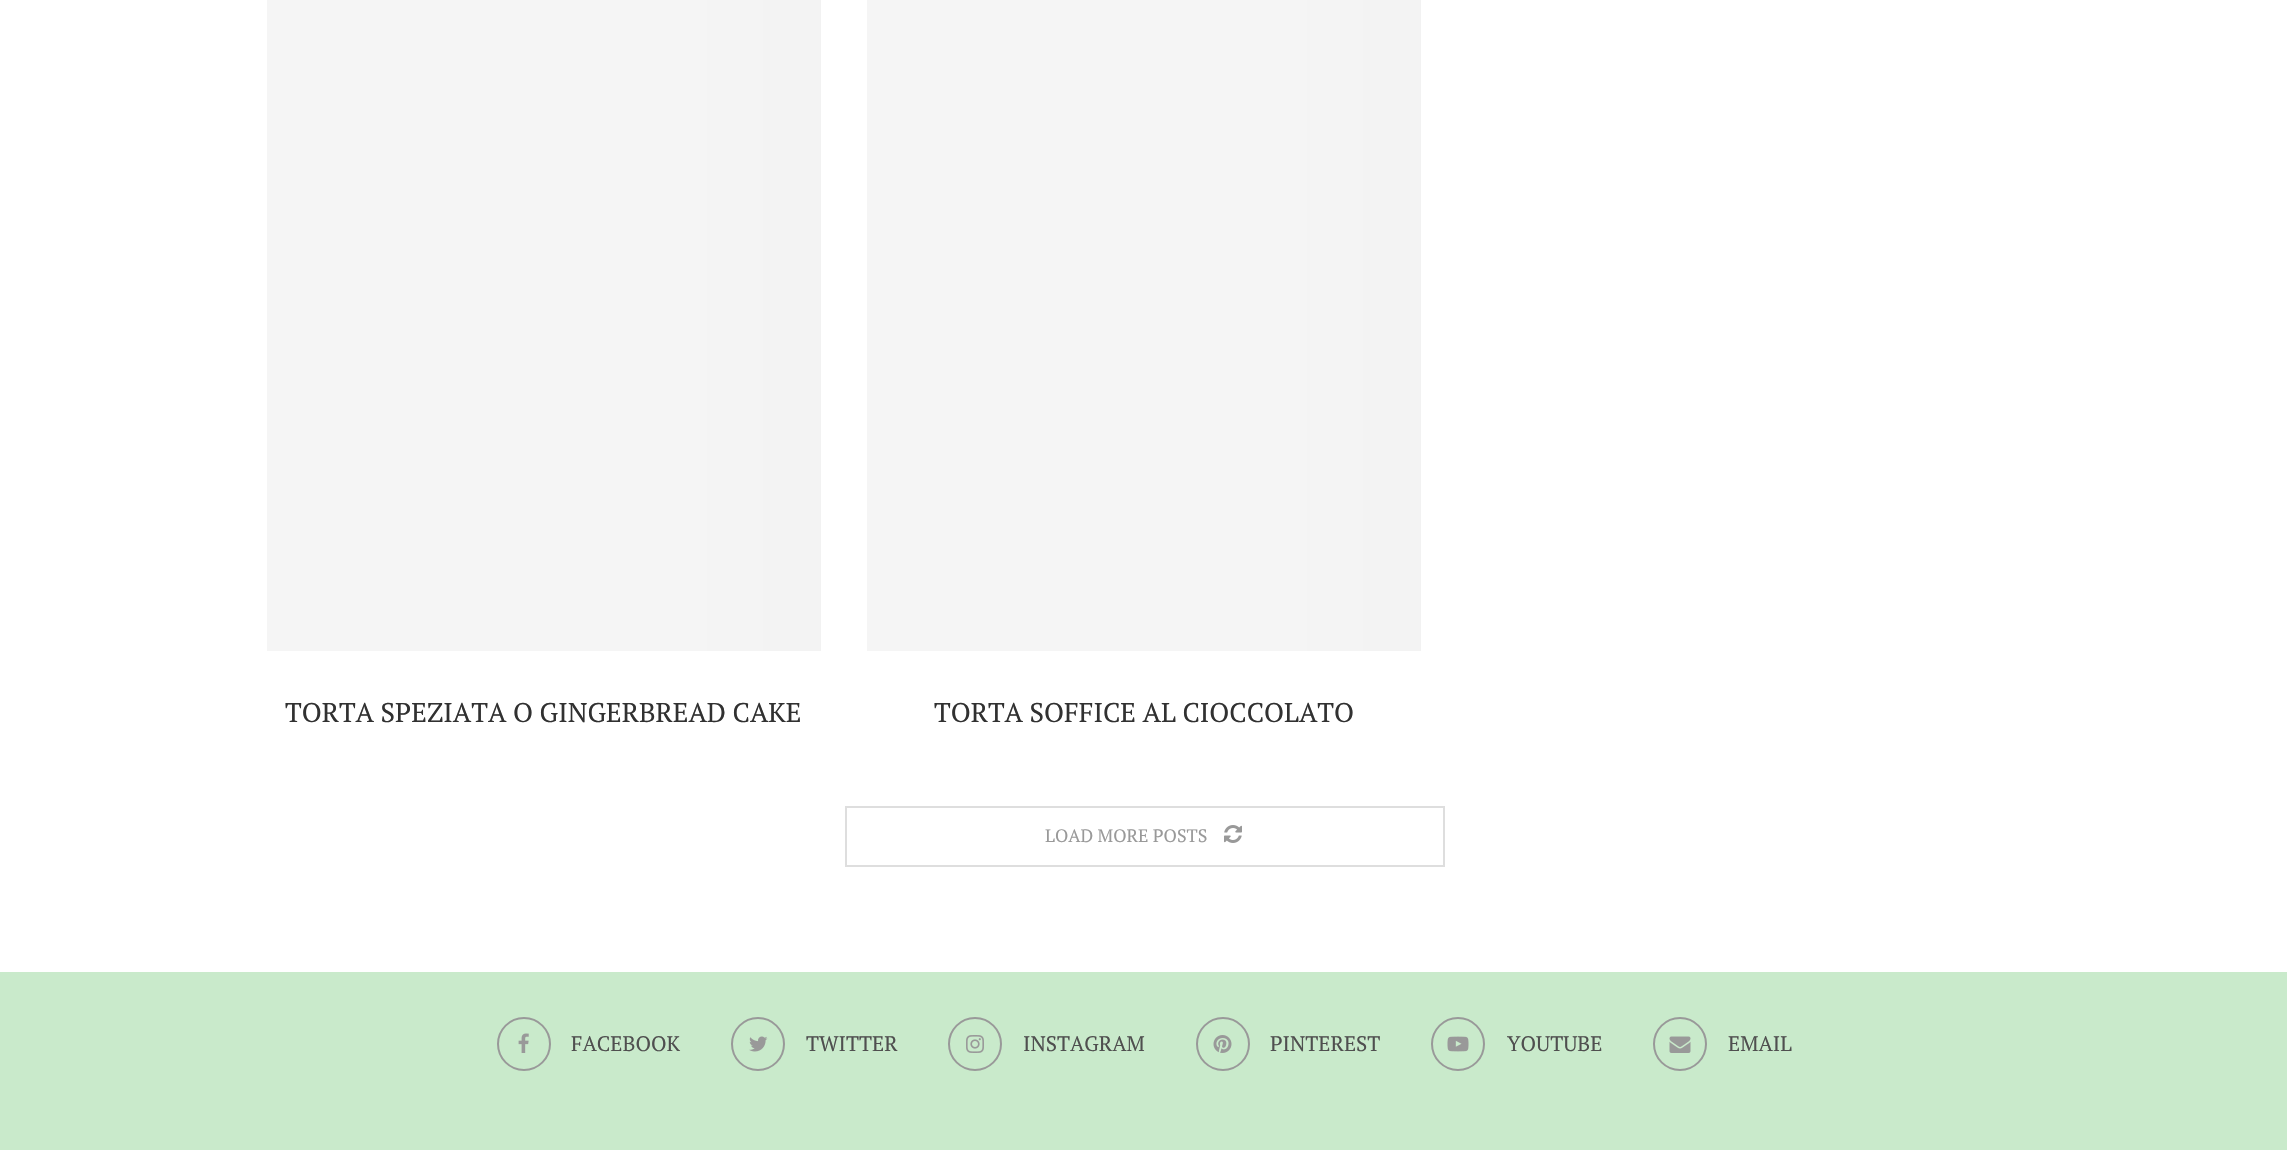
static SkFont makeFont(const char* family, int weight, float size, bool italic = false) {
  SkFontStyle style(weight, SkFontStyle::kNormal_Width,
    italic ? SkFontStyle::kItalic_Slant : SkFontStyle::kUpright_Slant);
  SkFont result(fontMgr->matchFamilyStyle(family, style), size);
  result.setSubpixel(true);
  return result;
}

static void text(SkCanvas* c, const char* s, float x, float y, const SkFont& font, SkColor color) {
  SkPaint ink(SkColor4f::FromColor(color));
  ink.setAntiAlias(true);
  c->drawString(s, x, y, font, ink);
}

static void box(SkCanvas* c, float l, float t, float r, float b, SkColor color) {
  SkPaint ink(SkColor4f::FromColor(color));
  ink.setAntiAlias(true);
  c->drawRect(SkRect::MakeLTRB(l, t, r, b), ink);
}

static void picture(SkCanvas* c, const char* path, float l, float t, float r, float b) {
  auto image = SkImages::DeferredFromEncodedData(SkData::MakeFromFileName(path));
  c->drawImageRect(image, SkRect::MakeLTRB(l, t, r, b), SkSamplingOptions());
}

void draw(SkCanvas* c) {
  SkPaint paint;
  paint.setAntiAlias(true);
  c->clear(0xffffffff);
  {
    const SkColor colors[] = {0xfff5f5f5, 0xffefefef, 0xfff5f5f5, 0xfff5f5f5};
    const float stops[] = {0, 0.15f, 0.4f, 1};
    const SkPoint ends[] = {{1219, 275}, {-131, 275}};
    paint.setShader(SkGradientShader::MakeLinear(ends, colors, stops, 4, SkTileMode::kClamp));
    paint.setAlpha(255);
  }
  c->drawRect(SkRect::MakeLTRB(267, 0, 821, 651), paint);
  SkFont face1 = makeFont("PT Serif", 400, 27);
  text(c, "TORTA SPEZIATA O GINGERBREAD CAKE", 285, 722, face1, 0xff313131);
  {
    const SkColor colors[] = {0xfff5f5f5, 0xffefefef, 0xfff5f5f5, 0xfff5f5f5};
    const float stops[] = {0, 0.15f, 0.4f, 1};
    const SkPoint ends[] = {{1819, 275}, {469, 275}};
    paint.setShader(SkGradientShader::MakeLinear(ends, colors, stops, 4, SkTileMode::kClamp));
    paint.setAlpha(255);
  }
  c->drawRect(SkRect::MakeLTRB(867, 0, 1421, 651), paint);
  text(c, "TORTA SOFFICE AL CIOCCOLATO", 934, 722, face1, 0xff313131);
  paint.setStyle(SkPaint::kStroke_Style);
  paint.setStrokeWidth(2);
  paint.setShader(nullptr);
  paint.setColor(0xffdedede);
  c->drawRect(SkRect::MakeLTRB(846, 807, 1444, 866), paint);
  SkFont face2 = makeFont("PT Serif", 400, 18);
  text(c, "LOAD MORE POSTS", 1045, 842, face2, 0xff999999);
  picture(c, "img_01.png", 1224, 825, 1242, 843);
  box(c, 0, 972, 2287, 1150, 0xffc9eacb);
  paint.setColor(0xff999999);
  c->drawCircle(524, 1044, 26, paint);
  picture(c, "img_02.png", 518, 1033, 529, 1053);
  SkFont face3 = makeFont("PT Serif", 400, 21);
  text(c, "FACEBOOK", 571, 1051, face3, 0xff4f4f4f);
  c->drawCircle(758, 1044, 26, paint);
  picture(c, "img_03.png", 749, 1036, 768, 1052);
  text(c, "TWITTER", 806, 1051, face3, 0xff4f4f4f);
  c->drawCircle(975, 1044, 26, paint);
  picture(c, "img_04.png", 966, 1035, 984, 1053);
  text(c, "INSTAGRAM", 1023, 1051, face3, 0xff4f4f4f);
  c->drawCircle(1223, 1044, 26, paint);
  picture(c, "img_05.png", 1213, 1035, 1232, 1053);
  text(c, "PINTEREST", 1270, 1051, face3, 0xff4f4f4f);
  c->drawCircle(1458, 1044, 26, paint);
  picture(c, "img_06.png", 1447, 1036, 1469, 1052);
  text(c, "YOUTUBE", 1507, 1051, face3, 0xff4f4f4f);
  c->drawCircle(1680, 1044, 26, paint);
  picture(c, "img_07.png", 1669, 1036, 1691, 1053);
  text(c, "EMAIL", 1728, 1051, face3, 0xff4f4f4f);
}
